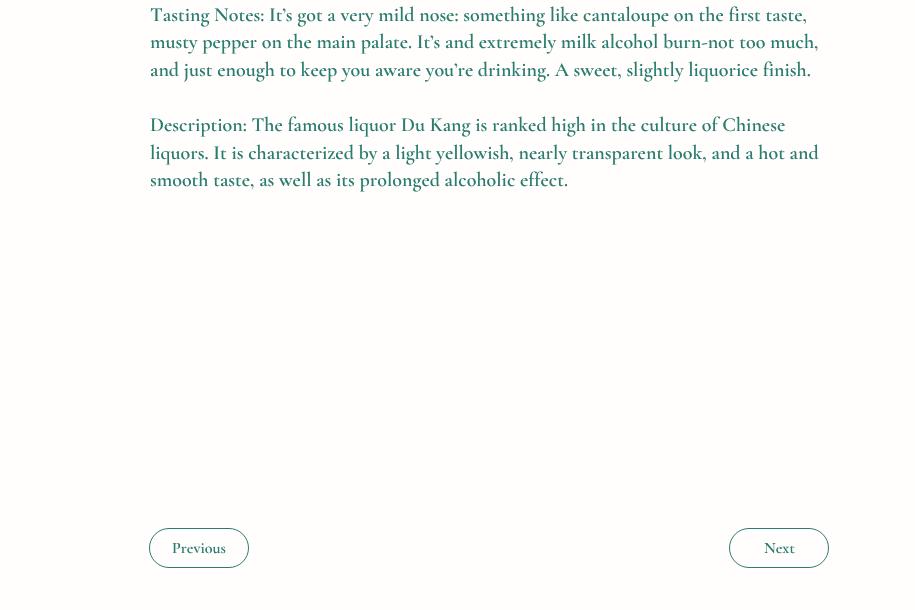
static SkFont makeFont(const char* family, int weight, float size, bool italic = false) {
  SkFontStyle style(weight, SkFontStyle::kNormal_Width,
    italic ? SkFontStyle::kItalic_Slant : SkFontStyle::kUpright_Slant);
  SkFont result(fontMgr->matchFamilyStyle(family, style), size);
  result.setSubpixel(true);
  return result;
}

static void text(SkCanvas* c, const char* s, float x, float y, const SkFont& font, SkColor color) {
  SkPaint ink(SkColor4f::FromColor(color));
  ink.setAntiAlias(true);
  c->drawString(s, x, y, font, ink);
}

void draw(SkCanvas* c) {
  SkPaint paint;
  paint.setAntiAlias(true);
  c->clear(0xfffffefc);
  SkFont face1 = makeFont("Cormorant Garamond", 600, 20);
  text(c, "Tasting Notes: It’s got a very mild nose: something like cantaloupe on the first taste,", 150, 21, face1, 0xff2a7c6f);
  text(c, "musty pepper on the main palate. It’s and extremely milk alcohol burn-not too much,", 150, 48, face1, 0xff2a7c6f);
  text(c, "and just enough to keep you aware you’re drinking. A sweet, slightly liquorice finish.", 150, 76, face1, 0xff2a7c6f);
  text(c, "Description: The famous liquor Du Kang is ranked high in the culture of Chinese", 150, 131, face1, 0xff2a7c6f);
  text(c, "liquors. It is characterized by a light yellowish, nearly transparent look, and a hot and", 150, 159, face1, 0xff2a7c6f);
  text(c, "smooth taste, as well as its prolonged alcoholic effect.", 150, 186, face1, 0xff2a7c6f);
  paint.setStyle(SkPaint::kStroke_Style);
  paint.setStrokeWidth(1);
  paint.setColor(0xff2a7c6f);
  c->drawRoundRect(SkRect::MakeLTRB(149.5f, 528.5f, 248.5f, 567.5f), 19.5f, 19.5f, paint);
  SkFont face2 = makeFont("Cormorant Garamond", 600, 16);
  text(c, "Previous", 172, 553, face2, 0xff2a7c6f);
  c->drawRoundRect(SkRect::MakeLTRB(729.5f, 528.5f, 828.5f, 567.5f), 19.5f, 19.5f, paint);
  text(c, "Next", 764, 553, face2, 0xff2a7c6f);
}
